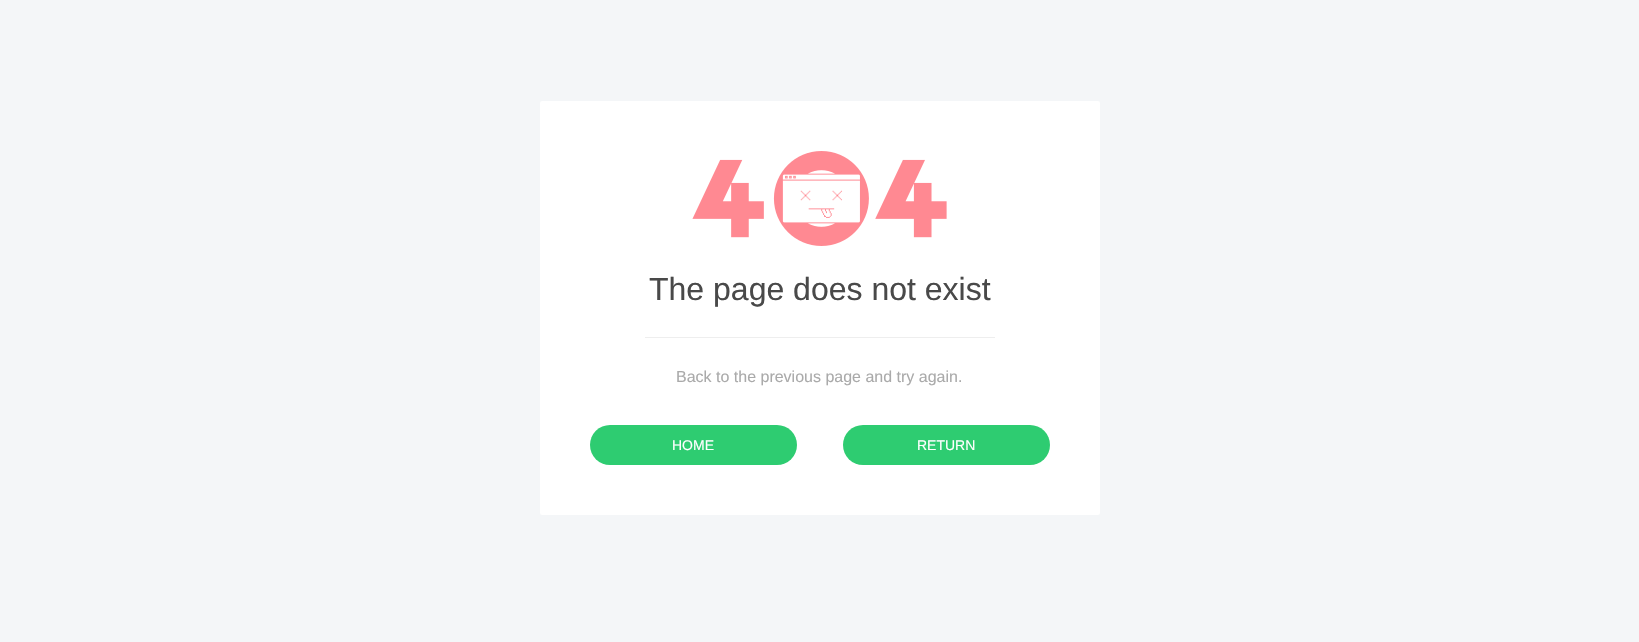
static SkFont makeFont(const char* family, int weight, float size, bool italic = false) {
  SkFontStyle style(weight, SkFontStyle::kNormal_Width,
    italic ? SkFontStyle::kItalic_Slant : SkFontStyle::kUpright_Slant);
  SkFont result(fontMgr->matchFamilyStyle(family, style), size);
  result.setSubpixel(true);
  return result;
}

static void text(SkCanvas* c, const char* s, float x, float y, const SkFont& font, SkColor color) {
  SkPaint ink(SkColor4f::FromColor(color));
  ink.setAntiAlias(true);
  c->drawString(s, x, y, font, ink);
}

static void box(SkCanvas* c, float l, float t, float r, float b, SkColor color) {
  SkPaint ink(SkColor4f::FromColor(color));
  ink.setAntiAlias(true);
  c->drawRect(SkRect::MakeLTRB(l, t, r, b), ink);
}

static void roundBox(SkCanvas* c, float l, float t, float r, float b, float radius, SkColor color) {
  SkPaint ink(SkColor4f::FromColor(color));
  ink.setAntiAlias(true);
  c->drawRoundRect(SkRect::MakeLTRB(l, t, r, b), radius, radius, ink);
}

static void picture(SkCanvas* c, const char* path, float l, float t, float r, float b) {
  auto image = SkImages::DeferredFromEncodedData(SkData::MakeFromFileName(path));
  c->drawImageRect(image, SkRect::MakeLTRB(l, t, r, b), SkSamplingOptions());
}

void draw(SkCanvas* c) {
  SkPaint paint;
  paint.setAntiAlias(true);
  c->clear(0xfff4f6f8);
  roundBox(c, 540, 101, 1100, 515, 2, 0xffffffff);
  picture(c, "img_01.png", 692, 151, 947, 246);
  SkFont face1 = makeFont("Liberation Sans", 400, 32);
  text(c, "The page does not exist", 649, 300, face1, 0xff494949);
  box(c, 645, 337, 995, 338, 0xffeeeeee);
  SkFont face2 = makeFont("Liberation Sans", 400, 16);
  text(c, "Back to the previous page and try again.", 676, 382, face2, 0xffaaaaaa);
  roundBox(c, 590, 425, 797, 465, 20, 0xff2ecc71);
  SkFont face3 = makeFont("Liberation Sans", 400, 14);
  text(c, "HOME", 672, 450, face3, 0xffffffff);
  roundBox(c, 843, 425, 1050, 465, 20, 0xff2ecc71);
  text(c, "RETURN", 917, 450, face3, 0xffffffff);
}
